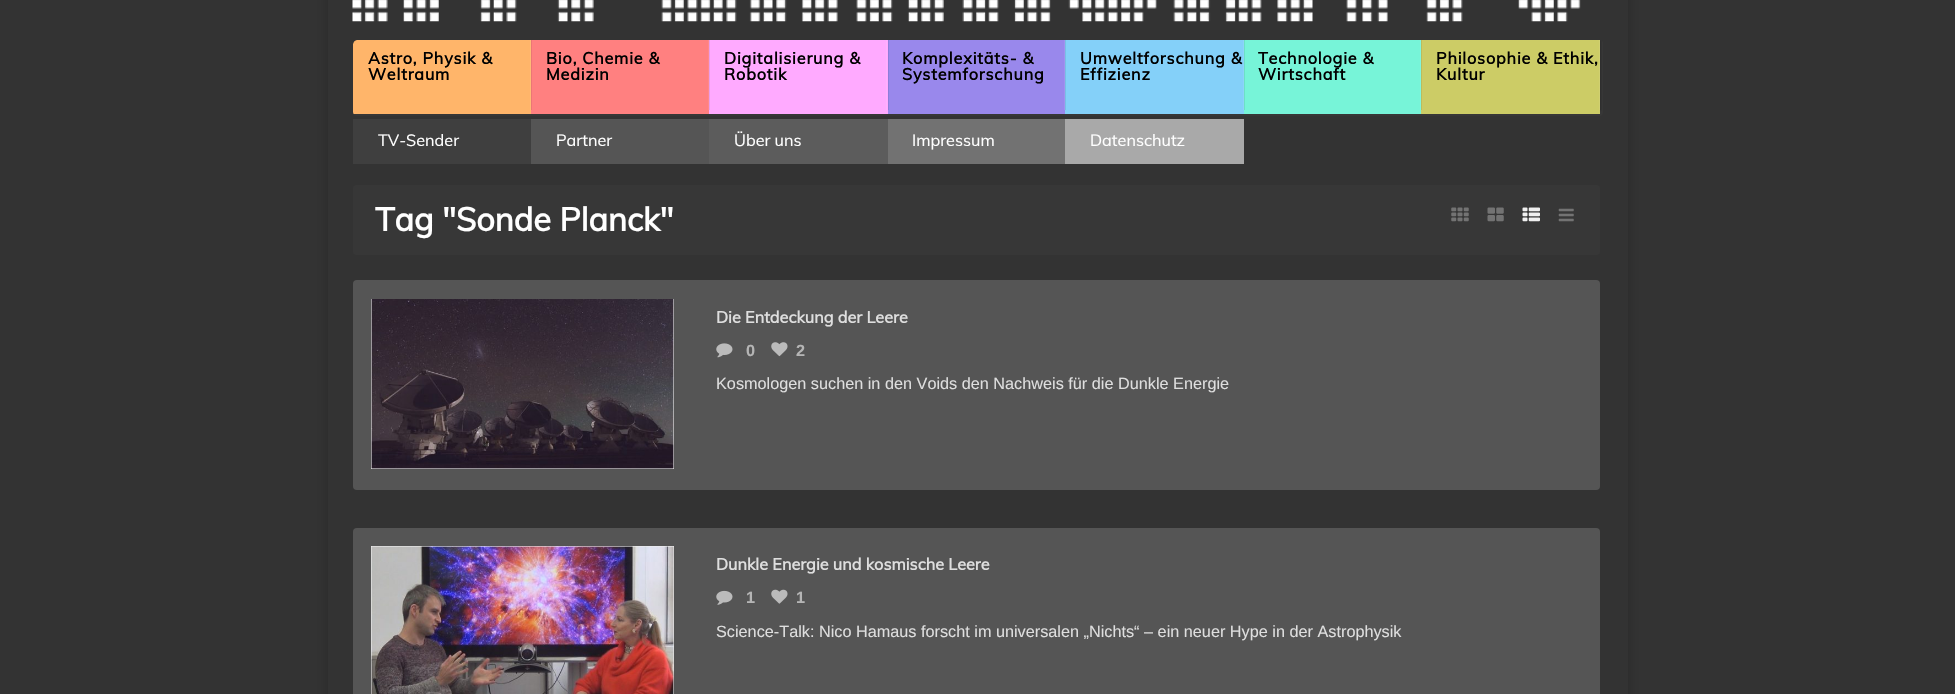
static SkFont makeFont(const char* family, int weight, float size, bool italic = false) {
  SkFontStyle style(weight, SkFontStyle::kNormal_Width,
    italic ? SkFontStyle::kItalic_Slant : SkFontStyle::kUpright_Slant);
  SkFont result(fontMgr->matchFamilyStyle(family, style), size);
  result.setSubpixel(true);
  return result;
}

static void text(SkCanvas* c, const char* s, float x, float y, const SkFont& font, SkColor color) {
  SkPaint ink(SkColor4f::FromColor(color));
  ink.setAntiAlias(true);
  c->drawString(s, x, y, font, ink);
}

static void spacedText(SkCanvas* c, const char* s, float x, float y, const SkFont& font, const SkPaint& ink, float letter, float word) {
  std::vector<SkGlyphID> glyphs(font.countText(s, strlen(s), SkTextEncoding::kUTF8));
  std::vector<float> xs(glyphs.size());
  font.textToGlyphs(s, strlen(s), SkTextEncoding::kUTF8, glyphs);
  font.getXPos(glyphs, xs, x);
  float extra = 0;
  for (size_t i = 0; i < glyphs.size(); i++) {
    xs[i] += extra;
    extra += letter + word * (glyphs[i] == font.unicharToGlyph(' '));
  }
  c->drawTextBlob(SkTextBlob::MakeFromPosHGlyphs(glyphs, xs, y, font), 0, 0, ink);
}

static void box(SkCanvas* c, float l, float t, float r, float b, SkColor color) {
  SkPaint ink(SkColor4f::FromColor(color));
  ink.setAntiAlias(true);
  c->drawRect(SkRect::MakeLTRB(l, t, r, b), ink);
}

static void roundBox(SkCanvas* c, float l, float t, float r, float b, float radius, SkColor color) {
  SkPaint ink(SkColor4f::FromColor(color));
  ink.setAntiAlias(true);
  c->drawRoundRect(SkRect::MakeLTRB(l, t, r, b), radius, radius, ink);
}

static void picture(SkCanvas* c, const char* path, float l, float t, float r, float b) {
  auto image = SkImages::DeferredFromEncodedData(SkData::MakeFromFileName(path));
  c->drawImageRect(image, SkRect::MakeLTRB(l, t, r, b), SkSamplingOptions());
}

void draw(SkCanvas* c) {
  SkPaint paint;
  paint.setAntiAlias(true);
  c->clear(0xff333333);
  paint.setColor(0x33000000);
  paint.setMaskFilter(SkMaskFilter::MakeBlur(kNormal_SkBlurStyle, 6));
  c->drawRect(SkRect::MakeLTRB(328, -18, 1628, 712), paint);
  paint.setMaskFilter(nullptr);
  box(c, 328, 0, 1628, 694, 0xff333333);
  picture(c, "img_01.png", 352, 0, 1581, 22);
  paint.setColor(0xff373737);
  c->drawPath(SkPathBuilder().moveTo(353, 111).lineTo(353, 112).cubicTo(353, 114, 355, 116, 357, 116).lineTo(1599, 116).cubicTo(1601, 116, 1603, 114, 1603, 112).lineTo(1603, 44).cubicTo(1603, 43, 1603, 42, 1602, 41).lineTo(1602, 109).cubicTo(1602, 111, 1601, 112, 1599, 112).lineTo(356, 112).cubicTo(355, 112, 354, 112, 353, 111).close().detach(), paint);
  c->save();
  c->clipPath(SkPathBuilder().moveTo(357, 40).lineTo(1599, 40).cubicTo(1601, 40, 1603, 42, 1603, 44).lineTo(1603, 112).cubicTo(1603, 114, 1601, 116, 1599, 116).lineTo(357, 116).cubicTo(355, 116, 353, 114, 353, 112).lineTo(353, 44).cubicTo(353, 42, 355, 40, 357, 40).close().detach(), true);
  paint.setColor(0xffffb56a);
  c->drawPath(SkPathBuilder().moveTo(357, 40).lineTo(531, 40).lineTo(531, 114).lineTo(353, 114).lineTo(353, 44).cubicTo(353, 42, 355, 40, 357, 40).close().detach(), paint);
  c->restore();
  SkFont face1 = makeFont("Muli", 700, 16.25f);
  paint.setColor(0xff000000);
  spacedText(c, "Astro, Physik &", 368, 64, face1, paint, 0.8f, 0);
  box(c, 531, 40, 709, 114, 0xffff8080);
  box(c, 531, 40, 532, 110, 0xffeb7676);
  box(c, 530, 40, 531, 110, 0xffffbb76);
  spacedText(c, "Weltraum", 368, 80, face1, paint, 0.8f, 0);
  spacedText(c, "Bio, Chemie &", 546, 64, face1, paint, 0.8f, 0);
  box(c, 709, 40, 888, 114, 0xffffaaff);
  box(c, 709, 40, 710, 110, 0xffeb9ceb);
  box(c, 708, 40, 709, 110, 0xffff8a8a);
  spacedText(c, "Medizin", 546, 80, face1, paint, 0.8f, 0);
  spacedText(c, "Digitalisierung &", 724, 64, face1, paint, 0.8f, 0);
  box(c, 888, 40, 1065, 114, 0xff9988ec);
  box(c, 888, 40, 889, 110, 0xff8d7dd9);
  box(c, 886, 40, 887, 110, 0xffffb1ff);
  spacedText(c, "Robotik", 724, 80, face1, paint, 0.8f, 0);
  spacedText(c, "Komplexitäts- &", 902, 64, face1, paint, 0.8f, 0);
  box(c, 1065, 40, 1244, 114, 0xff84d0f9);
  box(c, 1065, 40, 1066, 110, 0xff79bfe5);
  box(c, 1064, 40, 1065, 110, 0xffa192ee);
  spacedText(c, "Systemforschung", 902, 80, face1, paint, 0.8f, 0);
  spacedText(c, "Umweltforschung &", 1080, 64, face1, paint, 0.8f, 0);
  box(c, 1244, 40, 1421, 114, 0xff77f4d8);
  box(c, 1244, 40, 1245, 110, 0xff6de0c7);
  box(c, 1243, 40, 1244, 110, 0xff8ed4f9);
  spacedText(c, "Effizienz", 1080, 80, face1, paint, 0.8f, 0);
  spacedText(c, "Technologie &", 1258, 64, face1, paint, 0.8f, 0);
  box(c, 1421, 40, 1600, 114, 0xffcccc66);
  box(c, 1421, 40, 1422, 110, 0xffbcbc5e);
  box(c, 1420, 40, 1421, 110, 0xff82f5db);
  spacedText(c, "Wirtschaft", 1258, 80, face1, paint, 0.8f, 0);
  spacedText(c, "Philosophie & Ethik,", 1436, 64, face1, paint, 0.8f, 0);
  paint.setColor(0xff2f2f2f);
  c->drawPath(SkPathBuilder().moveTo(1600, 40).lineTo(1600, 110).lineTo(1601, 110).lineTo(1601, 41).close().detach(), paint);
  box(c, 1599, 40, 1600, 110, 0x14ffffff);
  paint.setColor(0xff000000);
  spacedText(c, "Kultur", 1436, 80, face1, paint, 0.8f, 0);
  box(c, 353, 119, 531, 164, 0xff3f3f3f);
  SkFont face2 = makeFont("Muli", 400, 16.25f);
  text(c, "TV-Sender", 378, 146, face2, 0xffffffff);
  box(c, 531, 119, 709, 164, 0xff555555);
  text(c, "Partner", 556, 146, face2, 0xffffffff);
  box(c, 709, 119, 888, 164, 0xff5c5c5c);
  text(c, "Über uns", 734, 146, face2, 0xffffffff);
  box(c, 888, 119, 1065, 164, 0xff727272);
  text(c, "Impressum", 912, 146, face2, 0xffffffff);
  box(c, 1065, 119, 1244, 164, 0xffa9a9a9);
  text(c, "Datenschutz", 1090, 146, face2, 0xffffffff);
  roundBox(c, 353, 185, 1600, 255, 4, 0xff373737);
  SkFont face3 = makeFont("Muli", 700, 32.5f);
  text(c, "Tag \"Sonde Planck\"", 375, 231, face3, 0xffffffff);
  picture(c, "img_02.png", 1451, 207, 1469, 222);
  picture(c, "img_03.png", 1487, 207, 1504, 222);
  picture(c, "img_04.png", 1522, 207, 1540, 222);
  picture(c, "img_05.png", 1558, 208, 1574, 222);
  roundBox(c, 353, 280, 1600, 490, 4, 0xff555555);
  box(c, 371, 299, 674, 469, 0xffeeeeee);
  picture(c, "img_06.png", 371, 299, 674, 469);
  text(c, "Die Entdeckung der Leere", 716, 323, face1, 0xffdedede);
  picture(c, "img_07.png", 716, 343, 733, 358);
  SkFont face4 = makeFont("Liberation Sans", 700, 16.25f);
  text(c, "0", 746, 356, face4, 0xffb5b5b5);
  picture(c, "img_08.png", 771, 342, 788, 357);
  text(c, "2", 796, 356, face4, 0xffb5b5b5);
  SkFont face5 = makeFont("Liberation Sans", 400, 16.25f);
  text(c, "Kosmologen suchen in den Voids den Nachweis für die Dunkle Energie", 716, 389, face5, 0xffdedede);
  roundBox(c, 353, 528, 1600, 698, 4, 0xff555555);
  box(c, 371, 546, 674, 694, 0xffeeeeee);
  picture(c, "img_09.png", 371, 546, 674, 694);
  text(c, "Dunkle Energie und kosmische Leere", 716, 570, face1, 0xffdedede);
  picture(c, "img_10.png", 716, 590, 733, 605);
  text(c, "1", 746, 603, face4, 0xffb5b5b5);
  picture(c, "img_11.png", 771, 589, 788, 604);
  text(c, "1", 796, 603, face4, 0xffb5b5b5);
  text(c, "Science-Talk: Nico Hamaus forscht im universalen „Nichts“ – ein neuer Hype in der Astrophysik", 716, 637, face5, 0xffdedede);
}
